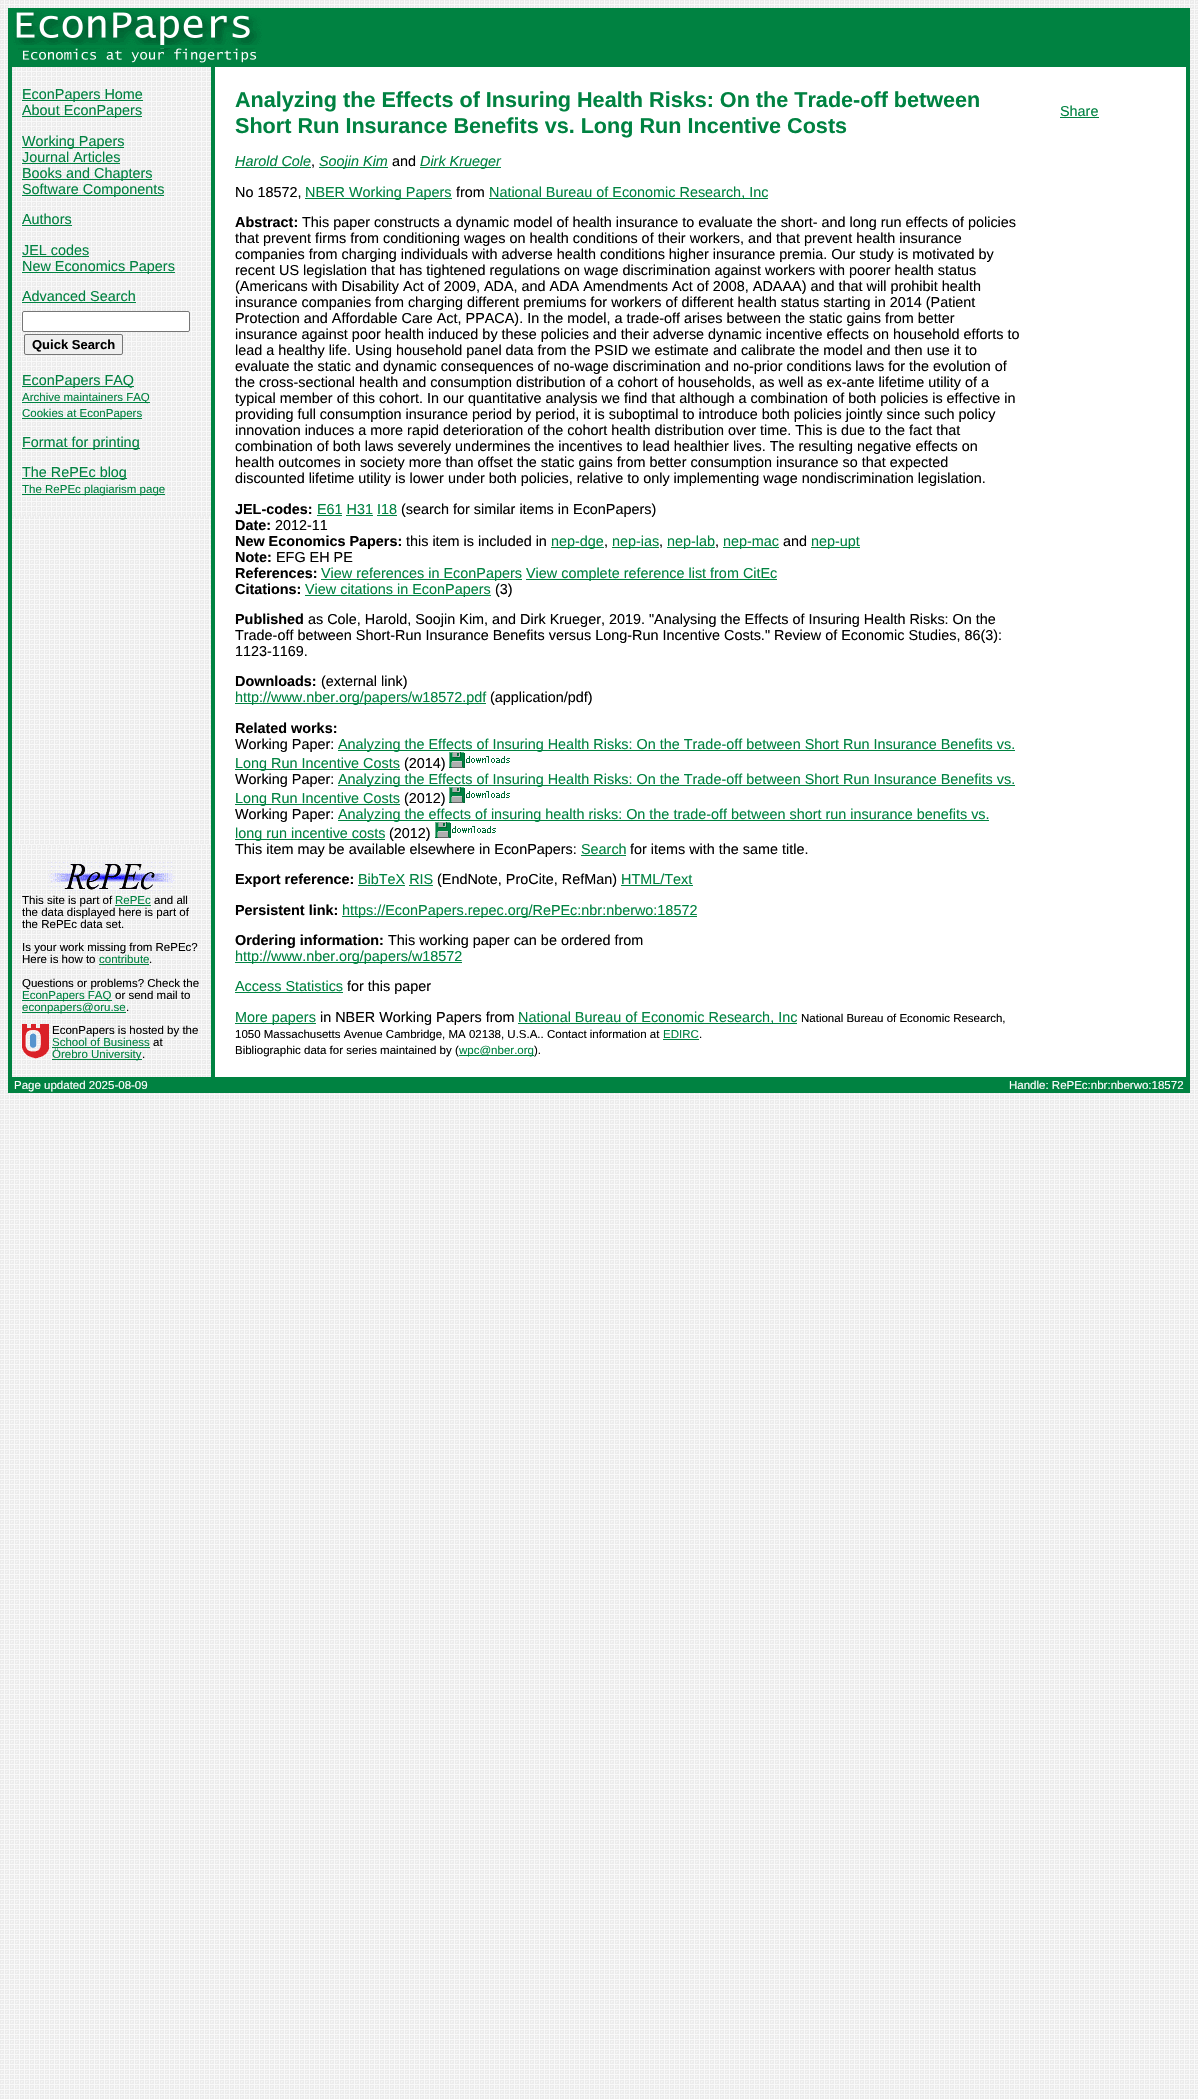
static SkFont makeFont(const char* family, int weight, float size, bool italic = false) {
  SkFontStyle style(weight, SkFontStyle::kNormal_Width,
    italic ? SkFontStyle::kItalic_Slant : SkFontStyle::kUpright_Slant);
  SkFont result(fontMgr->matchFamilyStyle(family, style), size);
  result.setSubpixel(true);
  return result;
}

static void text(SkCanvas* c, const char* s, float x, float y, const SkFont& font, SkColor color) {
  SkPaint ink(SkColor4f::FromColor(color));
  ink.setAntiAlias(true);
  c->drawString(s, x, y, font, ink);
}

static void box(SkCanvas* c, float l, float t, float r, float b, SkColor color) {
  SkPaint ink(SkColor4f::FromColor(color));
  ink.setAntiAlias(true);
  c->drawRect(SkRect::MakeLTRB(l, t, r, b), ink);
}

static void picture(SkCanvas* c, const char* path, float l, float t, float r, float b) {
  auto image = SkImages::DeferredFromEncodedData(SkData::MakeFromFileName(path));
  c->drawImageRect(image, SkRect::MakeLTRB(l, t, r, b), SkSamplingOptions());
}

void draw(SkCanvas* c) {
  SkPaint paint;
  paint.setAntiAlias(true);
  c->clear(0xffffffff);
  picture(c, "img_01.png", 0, 0, 1198, 2099);
  box(c, 8, 8, 12, 1093, 0xff008241);
  box(c, 12, 8, 1186, 48, 0xff008241);
  picture(c, "img_02.png", 13, 10, 262, 45);
  box(c, 1186, 8, 1190, 1093, 0xff008241);
  box(c, 12, 48, 1186, 67, 0xff008241);
  picture(c, "img_03.png", 18, 48, 257, 63);
  picture(c, "img_04.png", 12, 67, 211, 516);
  box(c, 22, 100, 143, 101, 0xff008241);
  SkFont face1 = makeFont("Liberation Sans", 400, 14.4f);
  text(c, "EconPapers Home", 22, 99, face1, 0xff008241);
  box(c, 22, 116, 142, 117, 0xff008241);
  text(c, "About EconPapers", 22, 115, face1, 0xff008241);
  box(c, 22, 147, 124, 148, 0xff008241);
  text(c, "Working Papers", 22, 146, face1, 0xff008241);
  text(c, "Journal Articles", 22, 162, face1, 0xff008241);
  box(c, 22, 163, 120, 164, 0xff008241);
  box(c, 22, 179, 152, 180, 0xff008241);
  text(c, "Books and Chapters", 22, 178, face1, 0xff008241);
  box(c, 22, 195, 164, 196, 0xff008241);
  text(c, "Software Components", 22, 194, face1, 0xff008241);
  text(c, "Authors", 22, 224, face1, 0xff008241);
  box(c, 22, 225, 72, 226, 0xff008241);
  text(c, "JEL codes", 22, 255, face1, 0xff008241);
  box(c, 22, 256, 89, 257, 0xff008241);
  box(c, 22, 272, 175, 273, 0xff008241);
  text(c, "New Economics Papers", 22, 271, face1, 0xff008241);
  text(c, "Advanced Search", 22, 301, face1, 0xff008241);
  box(c, 22, 302, 136, 303, 0xff008241);
  paint.setColor(0xffffffff);
  c->drawRoundRect(SkRect::MakeLTRB(22.5f, 311.5f, 189.5f, 331.5f), 1.5f, 1.5f, paint);
  paint.setStyle(SkPaint::kStroke_Style);
  paint.setStrokeWidth(1);
  paint.setColor(0xff767676);
  c->drawRoundRect(SkRect::MakeLTRB(22.5f, 311.5f, 189.5f, 331.5f), 1.5f, 1.5f, paint);
  paint.setStyle(SkPaint::kFill_Style);
  paint.setColor(0xffefefef);
  c->drawRoundRect(SkRect::MakeLTRB(24.5f, 334.5f, 122.5f, 354.5f), 1.5f, 1.5f, paint);
  paint.setStyle(SkPaint::kStroke_Style);
  paint.setColor(0xff767676);
  c->drawRoundRect(SkRect::MakeLTRB(24.5f, 334.5f, 122.5f, 354.5f), 1.5f, 1.5f, paint);
  SkFont face2 = makeFont("Liberation Sans", 700, 13);
  text(c, "Quick Search", 32, 349, face2, 0xff000000);
  box(c, 22, 386, 134, 387, 0xff008241);
  text(c, "EconPapers FAQ", 22, 385, face1, 0xff008241);
  box(c, 22, 402, 150, 403, 0xff008241);
  SkFont face3 = makeFont("Liberation Sans", 400, 11.5f);
  text(c, "Archive maintainers FAQ", 22, 401, face3, 0xff008241);
  box(c, 22, 418, 142, 419, 0xff008241);
  text(c, "Cookies at EconPapers", 22, 417, face3, 0xff008241);
  box(c, 22, 448, 140, 449, 0xff008241);
  text(c, "Format for printing", 22, 447, face1, 0xff008241);
  box(c, 22, 478, 127, 479, 0xff008241);
  text(c, "The RePEc blog", 22, 477, face1, 0xff008241);
  box(c, 22, 494, 165, 495, 0xff008241);
  text(c, "The RePEc plagiarism page", 22, 493, face3, 0xff008241);
  box(c, 211, 67, 215, 1077, 0xff008241);
  box(c, 215, 67, 1186, 1077, 0xffffffff);
  SkFont face4 = makeFont("Liberation Sans", 700, 21.6f);
  text(c, "Analyzing the Effects of Insuring Health Risks: On the Trade-off between", 235, 107, face4, 0xff008241);
  text(c, "Short Run Insurance Benefits vs. Long Run Incentive Costs", 235, 133, face4, 0xff008241);
  SkFont face5 = makeFont("Liberation Sans", 400, 14.4f, true);
  text(c, "Harold Cole", 235, 166, face5, 0xff008241);
  box(c, 235, 167, 311, 168, 0xff008241);
  text(c, ",", 311, 166, face1, 0xff000000);
  box(c, 319, 167, 388, 168, 0xff008241);
  text(c, "Soojin Kim", 319, 166, face5, 0xff008241);
  text(c, "and", 392, 166, face1, 0xff000000);
  box(c, 420, 167, 501, 168, 0xff008241);
  text(c, "Dirk Krueger", 420, 166, face5, 0xff008241);
  text(c, "No 18572,", 235, 197, face1, 0xff000000);
  box(c, 305, 198, 452, 199, 0xff008241);
  text(c, "NBER Working Papers", 305, 197, face1, 0xff008241);
  text(c, "from", 456, 197, face1, 0xff000000);
  box(c, 489, 198, 768, 199, 0xff008241);
  text(c, "National Bureau of Economic Research, Inc", 489, 197, face1, 0xff008241);
  SkFont face6 = makeFont("Liberation Sans", 700, 14.4f);
  text(c, "Abstract:", 235, 227, face6, 0xff000000);
  text(c, "This paper constructs a dynamic model of health insurance to evaluate the short- and long run effects of policies", 302, 227, face1, 0xff000000);
  text(c, "that prevent firms from conditioning wages on health conditions of their workers, and that prevent health insurance", 235, 243, face1, 0xff000000);
  text(c, "companies from charging individuals with adverse health conditions higher insurance premia. Our study is motivated by", 235, 259, face1, 0xff000000);
  text(c, "recent US legislation that has tightened regulations on wage discrimination against workers with poorer health status", 235, 275, face1, 0xff000000);
  text(c, "(Americans with Disability Act of 2009, ADA, and ADA Amendments Act of 2008, ADAAA) and that will prohibit health", 235, 291, face1, 0xff000000);
  text(c, "insurance companies from charging different premiums for workers of different health status starting in 2014 (Patient", 235, 307, face1, 0xff000000);
  text(c, "Protection and Affordable Care Act, PPACA). In the model, a trade-off arises between the static gains from better", 235, 323, face1, 0xff000000);
  text(c, "insurance against poor health induced by these policies and their adverse dynamic incentive effects on household efforts to", 235, 339, face1, 0xff000000);
  text(c, "lead a healthy life. Using household panel data from the PSID we estimate and calibrate the model and then use it to", 235, 355, face1, 0xff000000);
  text(c, "evaluate the static and dynamic consequences of no-wage discrimination and no-prior conditions laws for the evolution of", 235, 371, face1, 0xff000000);
  text(c, "the cross-sectional health and consumption distribution of a cohort of households, as well as ex-ante lifetime utility of a", 235, 387, face1, 0xff000000);
  text(c, "typical member of this cohort. In our quantitative analysis we find that although a combination of both policies is effective in", 235, 403, face1, 0xff000000);
  text(c, "providing full consumption insurance period by period, it is suboptimal to introduce both policies jointly since such policy", 235, 419, face1, 0xff000000);
  text(c, "innovation induces a more rapid deterioration of the cohort health distribution over time. This is due to the fact that", 235, 435, face1, 0xff000000);
  text(c, "combination of both laws severely undermines the incentives to lead healthier lives. The resulting negative effects on", 235, 451, face1, 0xff000000);
  text(c, "health outcomes in society more than offset the static gains from better consumption insurance so that expected", 235, 467, face1, 0xff000000);
  text(c, "discounted lifetime utility is lower under both policies, relative to only implementing wage nondiscrimination legislation.", 235, 483, face1, 0xff000000);
  text(c, "JEL-codes:", 235, 514, face6, 0xff000000);
  text(c, "E61 H31 I18", 317, 514, face1, 0xff008241);
  box(c, 317, 515, 342, 516, 0xff008241);
  text(c, "(search for similar items in EconPapers)", 401, 514, face1, 0xff000000);
  box(c, 346, 515, 373, 516, 0xff008241);
  box(c, 377, 515, 397, 516, 0xff008241);
  text(c, "Date:", 235, 530, face6, 0xff000000);
  text(c, "2012-11", 275, 530, face1, 0xff000000);
  text(c, "New Economics Papers:", 235, 546, face6, 0xff000000);
  text(c, "this item is included in", 406, 546, face1, 0xff000000);
  box(c, 551, 547, 604, 548, 0xff008241);
  text(c, "nep-dge", 551, 546, face1, 0xff008241);
  text(c, ",", 604, 546, face1, 0xff000000);
  box(c, 612, 547, 659, 548, 0xff008241);
  text(c, "nep-ias", 612, 546, face1, 0xff008241);
  text(c, ",", 659, 546, face1, 0xff000000);
  box(c, 667, 547, 715, 548, 0xff008241);
  text(c, "nep-lab", 667, 546, face1, 0xff008241);
  text(c, ",", 715, 546, face1, 0xff000000);
  box(c, 723, 547, 779, 548, 0xff008241);
  text(c, "nep-mac", 723, 546, face1, 0xff008241);
  text(c, "and", 783, 546, face1, 0xff000000);
  box(c, 811, 547, 860, 548, 0xff008241);
  text(c, "nep-upt", 811, 546, face1, 0xff008241);
  text(c, "Note:", 235, 562, face6, 0xff000000);
  text(c, "EFG EH PE", 276, 562, face1, 0xff000000);
  text(c, "References:", 235, 578, face6, 0xff000000);
  box(c, 321, 579, 522, 580, 0xff008241);
  text(c, "View references in EconPapers", 321, 578, face1, 0xff008241);
  box(c, 526, 579, 777, 580, 0xff008241);
  text(c, "View complete reference list from CitEc", 526, 578, face1, 0xff008241);
  text(c, "Citations:", 235, 594, face6, 0xff000000);
  box(c, 305, 595, 491, 596, 0xff008241);
  text(c, "View citations in EconPapers", 305, 594, face1, 0xff008241);
  text(c, "(3)", 495, 594, face1, 0xff000000);
  text(c, "Published", 235, 624, face6, 0xff000000);
  text(c, "as Cole, Harold, Soojin Kim, and Dirk Krueger, 2019. \"Analysing the Effects of Insuring Health Risks: On the", 308, 624, face1, 0xff000000);
  text(c, "Trade-off between Short-Run Insurance Benefits versus Long-Run Incentive Costs.\" Review of Economic Studies, 86(3):", 235, 640, face1, 0xff000000);
  text(c, "1123-1169.", 235, 656, face1, 0xff000000);
  text(c, "Downloads:", 235, 686, face6, 0xff000000);
  text(c, "(external link)", 321, 686, face1, 0xff000000);
  box(c, 235, 703, 486, 704, 0xff008241);
  text(c, "http://www.nber.org/papers/w18572.pdf", 235, 702, face1, 0xff008241);
  text(c, "(application/pdf)", 490, 702, face1, 0xff000000);
  text(c, "Related works:", 235, 733, face6, 0xff000000);
  text(c, "Working Paper:", 235, 749, face1, 0xff000000);
  box(c, 338, 750, 1015, 751, 0xff008241);
  text(c, "Analyzing the Effects of Insuring Health Risks: On the Trade-off between Short Run Insurance Benefits vs.", 338, 749, face1, 0xff008241);
  box(c, 235, 769, 400, 770, 0xff008241);
  text(c, "Long Run Incentive Costs", 235, 768, face1, 0xff008241);
  text(c, "(2014)", 404, 768, face1, 0xff000000);
  picture(c, "img_05.png", 449, 752, 510, 768);
  text(c, "Working Paper:", 235, 784, face1, 0xff000000);
  box(c, 338, 785, 1015, 786, 0xff008241);
  text(c, "Analyzing the Effects of Insuring Health Risks: On the Trade-off between Short Run Insurance Benefits vs.", 338, 784, face1, 0xff008241);
  box(c, 235, 804, 400, 805, 0xff008241);
  text(c, "Long Run Incentive Costs", 235, 803, face1, 0xff008241);
  text(c, "(2012)", 404, 803, face1, 0xff000000);
  picture(c, "img_05.png", 449, 787, 510, 803);
  text(c, "Working Paper:", 235, 819, face1, 0xff000000);
  box(c, 338, 820, 989, 821, 0xff008241);
  text(c, "Analyzing the effects of insuring health risks: On the trade-off between short run insurance benefits vs.", 338, 819, face1, 0xff008241);
  box(c, 235, 839, 385, 840, 0xff008241);
  text(c, "long run incentive costs", 235, 838, face1, 0xff008241);
  text(c, "(2012)", 389, 838, face1, 0xff000000);
  picture(c, "img_05.png", 435, 822, 496, 838);
  text(c, "This item may be available elsewhere in EconPapers:", 235, 854, face1, 0xff000000);
  text(c, "Search", 581, 854, face1, 0xff008241);
  box(c, 581, 855, 626, 856, 0xff008241);
  text(c, "for items with the same title.", 630, 854, face1, 0xff000000);
  text(c, "Export reference:", 235, 884, face6, 0xff000000);
  text(c, "BibTeX RIS", 358, 884, face1, 0xff008241);
  box(c, 358, 885, 405, 886, 0xff008241);
  text(c, "(EndNote, ProCite, RefMan)", 437, 884, face1, 0xff000000);
  text(c, "HTML/Text", 621, 884, face1, 0xff008241);
  box(c, 621, 885, 693, 886, 0xff008241);
  box(c, 409, 885, 433, 886, 0xff008241);
  text(c, "Persistent link:", 235, 915, face6, 0xff000000);
  box(c, 342, 916, 697, 917, 0xff008241);
  text(c, "https://EconPapers.repec.org/RePEc:nbr:nberwo:18572", 342, 915, face1, 0xff008241);
  text(c, "Ordering information:", 235, 945, face6, 0xff000000);
  text(c, "This working paper can be ordered from", 388, 945, face1, 0xff000000);
  box(c, 235, 962, 462, 963, 0xff008241);
  text(c, "http://www.nber.org/papers/w18572", 235, 961, face1, 0xff008241);
  text(c, "Access Statistics", 235, 991, face1, 0xff008241);
  box(c, 235, 992, 343, 993, 0xff008241);
  text(c, "for this paper", 347, 991, face1, 0xff000000);
  box(c, 235, 1023, 316, 1024, 0xff008241);
  text(c, "More papers", 235, 1022, face1, 0xff008241);
  text(c, "in NBER Working Papers from", 320, 1022, face1, 0xff000000);
  box(c, 518, 1023, 797, 1024, 0xff008241);
  text(c, "National Bureau of Economic Research, Inc", 518, 1022, face1, 0xff008241);
  text(c, "National Bureau of Economic Research,", 801, 1022, face3, 0xff000000);
  text(c, "1050 Massachusetts Avenue Cambridge, MA 02138, U.S.A.. Contact information at", 235, 1038, face3, 0xff000000);
  text(c, "EDIRC", 663, 1038, face3, 0xff008241);
  text(c, ".", 699, 1038, face3, 0xff000000);
  box(c, 663, 1039, 699, 1040, 0xff008241);
  text(c, "Bibliographic data for series maintained by (", 235, 1054, face3, 0xff000000);
  box(c, 459, 1055, 534, 1056, 0xff008241);
  text(c, "wpc@nber.org", 459, 1054, face3, 0xff008241);
  text(c, ").", 534, 1054, face3, 0xff000000);
  text(c, "Share", 1060, 116, face1, 0xff008241);
  box(c, 1060, 117, 1099, 118, 0xff008241);
  picture(c, "img_06.png", 12, 845, 210, 1077);
  picture(c, "img_07.png", 48, 862, 175, 891);
  text(c, "This site is part of", 22, 904, face3, 0xff000000);
  text(c, "RePEc", 115, 904, face3, 0xff008241);
  box(c, 115, 905, 151, 906, 0xff008241);
  text(c, "and all", 154, 904, face3, 0xff000000);
  text(c, "the data displayed here is part of", 22, 916, face3, 0xff000000);
  text(c, "the RePEc data set.", 22, 928, face3, 0xff000000);
  text(c, "Is your work missing from RePEc?", 22, 951, face3, 0xff000000);
  text(c, "Here is how to", 22, 963, face3, 0xff000000);
  text(c, "contribute", 99, 963, face3, 0xff008241);
  box(c, 99, 964, 149, 965, 0xff008241);
  text(c, ".", 149, 963, face3, 0xff000000);
  text(c, "Questions or problems? Check the", 22, 987, face3, 0xff000000);
  box(c, 22, 1000, 112, 1001, 0xff008241);
  text(c, "EconPapers FAQ", 22, 999, face3, 0xff008241);
  text(c, "or send mail to", 115, 999, face3, 0xff000000);
  box(c, 22, 1012, 126, 1013, 0xff008241);
  text(c, "econpapers@oru.se", 22, 1011, face3, 0xff008241);
  text(c, ".", 126, 1011, face3, 0xff000000);
  picture(c, "img_08.png", 22, 1024, 49, 1059);
  text(c, "EconPapers is hosted by the", 52, 1034, face3, 0xff000000);
  text(c, "School of Business", 52, 1046, face3, 0xff008241);
  box(c, 52, 1047, 150, 1048, 0xff008241);
  text(c, "at", 153, 1046, face3, 0xff000000);
  box(c, 52, 1059, 142, 1060, 0xff008241);
  text(c, "Örebro University", 52, 1058, face3, 0xff008241);
  text(c, ".", 142, 1058, face3, 0xff000000);
  box(c, 12, 1077, 1186, 1093, 0xff008241);
  text(c, "Page updated 2025-08-09", 14, 1089, face3, 0xffffffff);
  text(c, "Handle: RePEc:nbr:nberwo:18572", 1009, 1089, face3, 0xffffffff);
}
